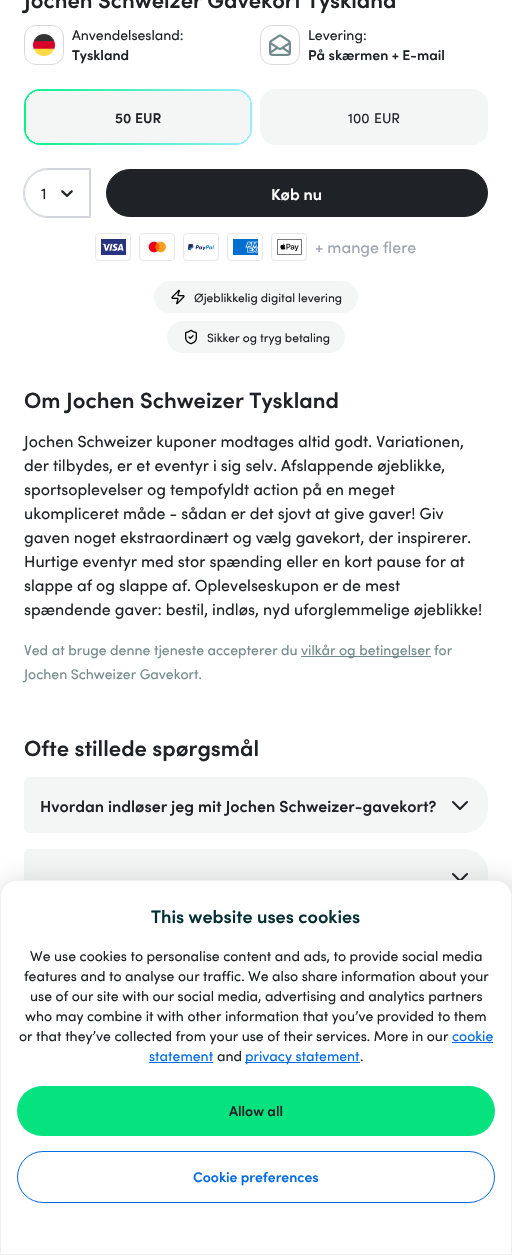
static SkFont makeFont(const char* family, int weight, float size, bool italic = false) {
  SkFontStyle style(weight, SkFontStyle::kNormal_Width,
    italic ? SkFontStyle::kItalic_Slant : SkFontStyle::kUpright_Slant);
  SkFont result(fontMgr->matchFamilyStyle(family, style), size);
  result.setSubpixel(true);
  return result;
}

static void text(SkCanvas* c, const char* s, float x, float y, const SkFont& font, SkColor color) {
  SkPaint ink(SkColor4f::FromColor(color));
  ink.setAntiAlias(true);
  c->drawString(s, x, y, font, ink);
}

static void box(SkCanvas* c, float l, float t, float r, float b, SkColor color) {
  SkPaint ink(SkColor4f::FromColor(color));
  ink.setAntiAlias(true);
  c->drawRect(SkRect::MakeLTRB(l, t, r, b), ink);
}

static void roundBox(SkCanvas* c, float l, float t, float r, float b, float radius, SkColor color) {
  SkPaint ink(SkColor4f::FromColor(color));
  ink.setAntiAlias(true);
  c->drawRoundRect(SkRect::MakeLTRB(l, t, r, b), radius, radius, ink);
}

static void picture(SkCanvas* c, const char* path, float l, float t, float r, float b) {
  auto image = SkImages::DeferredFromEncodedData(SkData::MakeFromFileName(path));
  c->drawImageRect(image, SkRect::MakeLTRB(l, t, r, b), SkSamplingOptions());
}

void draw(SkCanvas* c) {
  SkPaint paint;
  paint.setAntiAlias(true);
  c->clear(0xffffffff);
  SkFont face1 = makeFont("Sofia", 600, 22);
  text(c, "Jochen Schweizer Gavekort Tyskland", 24, 8, face1, 0xff1f2226);
  paint.setStyle(SkPaint::kStroke_Style);
  paint.setStrokeWidth(1);
  paint.setColor(0xffd9d9d9);
  c->drawRoundRect(SkRect::MakeLTRB(24.5f, 25.5f, 63.5f, 64.5f), 11.5f, 11.5f, paint);
  picture(c, "img_01.png", 33, 34, 55, 56);
  SkFont face2 = makeFont("Sofia", 400, 14);
  text(c, "Anvendelsesland:", 72, 40, face2, 0xff1f2226);
  SkFont face3 = makeFont("Sofia", 600, 14);
  text(c, "Tyskland", 72, 60, face3, 0xff1f2226);
  c->drawRoundRect(SkRect::MakeLTRB(260.5f, 25.5f, 299.5f, 64.5f), 11.5f, 11.5f, paint);
  picture(c, "img_02.png", 269, 34, 291, 56);
  text(c, "Levering:", 308, 40, face2, 0xff1f2226);
  text(c, "På skærmen + E-mail", 308, 60, face3, 0xff1f2226);
  paint.setStyle(SkPaint::kFill_Style);
  {
    const SkColor colors[] = {0xff07f288, 0xff99eeff};
    const float stops[] = {0, 1};
    const SkPoint ends[] = {{24, 117}, {252, 117}};
    paint.setShader(SkGradientShader::MakeLinear(ends, colors, stops, 2, SkTileMode::kClamp));
    paint.setAlpha(255);
  }
  c->drawRoundRect(SkRect::MakeLTRB(24, 89, 252, 145), 16, 16, paint);
  box(c, 40, 91, 236, 143, 0xfff4f6f6);
  box(c, 26, 105, 250, 129, 0xfff4f6f6);
  {
    const SkColor colors[] = {0xfff4f6f6, 0xfff4f6f6, 0x00f4f6f6};
    const float stops[] = {0, 0.62f, 0.62f};
    paint.setShader(SkGradientShader::MakeRadial({236, 129}, 23, colors, stops, 3, SkTileMode::kClamp));
    paint.setAlpha(255);
  }
  c->drawRect(SkRect::MakeLTRB(236, 129, 250, 143), paint);
  {
    const SkColor colors[] = {0xfff4f6f6, 0xfff4f6f6, 0x00f4f6f6};
    const float stops[] = {0, 0.62f, 0.62f};
    paint.setShader(SkGradientShader::MakeRadial({40, 129}, 23, colors, stops, 3, SkTileMode::kClamp));
    paint.setAlpha(255);
  }
  c->drawRect(SkRect::MakeLTRB(26, 129, 40, 143), paint);
  {
    const SkColor colors[] = {0xfff4f6f6, 0xfff4f6f6, 0x00f4f6f6};
    const float stops[] = {0, 0.62f, 0.62f};
    paint.setShader(SkGradientShader::MakeRadial({236, 105}, 23, colors, stops, 3, SkTileMode::kClamp));
    paint.setAlpha(255);
  }
  c->drawRect(SkRect::MakeLTRB(236, 91, 250, 105), paint);
  {
    const SkColor colors[] = {0xfff4f6f6, 0xfff4f6f6, 0x00f4f6f6};
    const float stops[] = {0, 0.62f, 0.62f};
    paint.setShader(SkGradientShader::MakeRadial({40, 105}, 23, colors, stops, 3, SkTileMode::kClamp));
    paint.setAlpha(255);
  }
  c->drawRect(SkRect::MakeLTRB(26, 91, 40, 105), paint);
  text(c, "50", 115, 123, face3, 0xff1f2226);
  text(c, "EUR", 135, 123, face3, 0xff1f2226);
  roundBox(c, 260, 89, 488, 145, 16, 0xfff4f6f6);
  text(c, "100", 348, 123, face2, 0xff1f2226);
  text(c, "EUR", 374, 123, face2, 0xff1f2226);
  paint.setStyle(SkPaint::kStroke_Style);
  paint.setShader(nullptr);
  paint.setColor(0xffd1d5db);
  c->drawPath(SkPathBuilder().moveTo(48, 168.5f).lineTo(90, 168.5f).cubicTo(90.5f, 168.5f, 90.5f, 168.5f, 90.5f, 169).lineTo(90.5f, 217).cubicTo(90.5f, 217.5f, 90.5f, 217.5f, 90, 217.5f).lineTo(48, 217.5f).cubicTo(34.5f, 217.5f, 23.5f, 206.5f, 23.5f, 193).cubicTo(23.5f, 179.5f, 34.5f, 168.5f, 48, 168.5f).close().detach(), paint);
  paint.setStyle(SkPaint::kFill_Style);
  paint.setColor(0xffffffff);
  c->drawPath(SkPathBuilder().moveTo(48, 169.5f).lineTo(89.5f, 169.5f).lineTo(89.5f, 216.5f).lineTo(48, 216.5f).cubicTo(35, 216.5f, 24.5f, 206, 24.5f, 193).cubicTo(24.5f, 180, 35, 169.5f, 48, 169.5f).close().detach(), paint);
  paint.setStyle(SkPaint::kStroke_Style);
  paint.setColor(0xffd1d5db);
  c->drawPath(SkPathBuilder().moveTo(48, 169.5f).lineTo(89.5f, 169.5f).lineTo(89.5f, 216.5f).lineTo(48, 216.5f).cubicTo(35, 216.5f, 24.5f, 206, 24.5f, 193).cubicTo(24.5f, 180, 35, 169.5f, 48, 169.5f).close().detach(), paint);
  SkFont face4 = makeFont("Sofia", 400, 16);
  text(c, "1", 41, 199, face4, 0xff1f2226);
  picture(c, "img_03.png", 61, 190, 73, 197);
  paint.setStyle(SkPaint::kFill_Style);
  paint.setColor(0xff1f2226);
  c->drawRoundRect(SkRect::MakeLTRB(106.5f, 169.5f, 487.5f, 216.5f), 23.5f, 23.5f, paint);
  paint.setStyle(SkPaint::kStroke_Style);
  c->drawRoundRect(SkRect::MakeLTRB(106.5f, 169.5f, 487.5f, 216.5f), 23.5f, 23.5f, paint);
  SkFont face5 = makeFont("Sofia", 600, 16);
  text(c, "Køb nu", 271, 200, face5, 0xffffffff);
  paint.setColor(0xffe5e7eb);
  c->drawRoundRect(SkRect::MakeLTRB(95.5f, 233.5f, 130.5f, 260.5f), 3.5f, 3.5f, paint);
  picture(c, "img_04.png", 101, 239, 126, 255);
  c->drawRoundRect(SkRect::MakeLTRB(139.5f, 233.5f, 174.5f, 260.5f), 3.5f, 3.5f, paint);
  picture(c, "img_05.png", 148, 241, 166, 253);
  c->drawRoundRect(SkRect::MakeLTRB(183.5f, 233.5f, 218.5f, 260.5f), 3.5f, 3.5f, paint);
  picture(c, "img_06.png", 188, 244, 214, 251);
  c->drawRoundRect(SkRect::MakeLTRB(227.5f, 233.5f, 262.5f, 260.5f), 3.5f, 3.5f, paint);
  picture(c, "img_07.png", 233, 239, 258, 255);
  c->drawRoundRect(SkRect::MakeLTRB(271.5f, 233.5f, 306.5f, 260.5f), 3.5f, 3.5f, paint);
  picture(c, "img_08.png", 277, 239, 302, 255);
  text(c, "+ mange flere", 315, 253, face4, 0xff9ca3af);
  roundBox(c, 154, 281, 358, 313, 16, 0xfff4f6f6);
  picture(c, "img_09.png", 171, 289, 185, 305);
  SkFont face6 = makeFont("Sofia", 400, 12);
  text(c, "Øjeblikkelig digital levering", 194, 302, face6, 0xff1f2226);
  roundBox(c, 167, 321, 345, 353, 16, 0xfff4f6f6);
  picture(c, "img_10.png", 185, 329, 197, 345);
  text(c, "Sikker og tryg betaling", 207, 342, face6, 0xff1f2226);
  text(c, "Om Jochen Schweizer Tyskland", 24, 408, face1, 0xff1f2226);
  text(c, "Jochen Schweizer kuponer modtages altid godt. Variationen,", 24, 447, face4, 0xff1f2226);
  text(c, "der tilbydes, er et eventyr i sig selv. Afslappende øjeblikke,", 24, 471, face4, 0xff1f2226);
  text(c, "sportsoplevelser og tempofyldt action på en meget", 24, 495, face4, 0xff1f2226);
  text(c, "ukompliceret måde - sådan er det sjovt at give gaver! Giv", 24, 519, face4, 0xff1f2226);
  text(c, "gaven noget ekstraordinært og vælg gavekort, der inspirerer.", 24, 543, face4, 0xff1f2226);
  text(c, "Hurtige eventyr med stor spænding eller en kort pause for at", 24, 567, face4, 0xff1f2226);
  text(c, "slappe af og slappe af. Oplevelseskupon er de mest", 24, 591, face4, 0xff1f2226);
  text(c, "spændende gaver: bestil, indløs, nyd uforglemmelige øjeblikke!", 24, 615, face4, 0xff1f2226);
  text(c, "Ved at bruge denne tjeneste accepterer du", 24, 655, face2, 0xff738a8c);
  box(c, 301, 656, 431, 657, 0xff738a8c);
  text(c, "vilkår og betingelser", 301, 655, face2, 0xff738a8c);
  text(c, "for", 434, 655, face2, 0xff738a8c);
  text(c, "Jochen Schweizer Gavekort.", 24, 679, face2, 0xff738a8c);
  text(c, "Ofte stillede spørgsmål", 24, 756, face1, 0xff1f2226);
  paint.setStyle(SkPaint::kFill_Style);
  paint.setColor(0xfff4f6f6);
  c->drawPath(SkPathBuilder().moveTo(30, 777).lineTo(464, 777).cubicTo(477.5f, 777, 488, 787.5f, 488, 801).lineTo(488, 809).cubicTo(488, 822.5f, 477.5f, 833, 464, 833).lineTo(30, 833).cubicTo(26.5f, 833, 24, 830.5f, 24, 827).lineTo(24, 783).cubicTo(24, 779.5f, 26.5f, 777, 30, 777).close().detach(), paint);
  text(c, "Hvordan indløser jeg mit Jochen Schweizer-gavekort?", 40, 812, face5, 0xff1f2226);
  paint.setStyle(SkPaint::kStroke_Style);
  paint.setStrokeWidth(2);
  paint.setStrokeCap(SkPaint::kRound_Cap);
  paint.setStrokeJoin(SkPaint::kRound_Join);
  paint.setColor(0xff1f2226);
  c->drawPath(SkPathBuilder().moveTo(467, 802).lineTo(460, 809).lineTo(453, 802).detach(), paint);
  paint.setStyle(SkPaint::kFill_Style);
  paint.setColor(0xfff4f6f6);
  c->drawPath(SkPathBuilder().moveTo(30, 849).lineTo(464, 849).cubicTo(477.5f, 849, 488, 859.5f, 488, 873).lineTo(488, 881).cubicTo(488, 894.5f, 477.5f, 905, 464, 905).lineTo(30, 905).cubicTo(26.5f, 905, 24, 902.5f, 24, 899).lineTo(24, 855).cubicTo(24, 851.5f, 26.5f, 849, 30, 849).close().detach(), paint);
  paint.setStyle(SkPaint::kStroke_Style);
  paint.setColor(0xff1f2226);
  c->drawPath(SkPathBuilder().moveTo(467, 874).lineTo(460, 881).lineTo(453, 874).detach(), paint);
  paint.setStyle(SkPaint::kFill_Style);
  paint.setColor(0x26000000);
  paint.setMaskFilter(SkMaskFilter::MakeBlur(kNormal_SkBlurStyle, 12));
  c->drawRoundRect(SkRect::MakeLTRB(2, 881, 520, 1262), 19, 19, paint);
  paint.setMaskFilter(nullptr);
  paint.setColor(0xffffffff);
  c->drawPath(SkPathBuilder().moveTo(16, 880.5f).lineTo(496, 880.5f).cubicTo(504.5f, 880.5f, 511.5f, 887.5f, 511.5f, 896).lineTo(511.5f, 1254.5f).lineTo(0.5f, 1254.5f).lineTo(0.5f, 896).cubicTo(0.5f, 887.5f, 7.5f, 880.5f, 16, 880.5f).close().detach(), paint);
  paint.setStyle(SkPaint::kStroke_Style);
  paint.setStrokeWidth(1);
  paint.setStrokeCap(SkPaint::kButt_Cap);
  paint.setStrokeJoin(SkPaint::kMiter_Join);
  paint.setColor(0xfff0f0f0);
  c->drawPath(SkPathBuilder().moveTo(16, 880.5f).lineTo(496, 880.5f).cubicTo(504.5f, 880.5f, 511.5f, 887.5f, 511.5f, 896).lineTo(511.5f, 1254.5f).lineTo(0.5f, 1254.5f).lineTo(0.5f, 896).cubicTo(0.5f, 887.5f, 7.5f, 880.5f, 16, 880.5f).close().detach(), paint);
  SkFont face7 = makeFont("Sofia", 600, 18);
  text(c, "This website uses cookies", 151, 923, face7, 0xff032e33);
  text(c, "We use cookies to personalise content and ads, to provide social media", 30, 961, face2, 0xff1f2226);
  text(c, "features and to analyse our traffic. We also share information about your", 24, 981, face2, 0xff1f2226);
  text(c, "use of our site with our social media, advertising and analytics partners", 30, 1001, face2, 0xff1f2226);
  text(c, "who may combine it with other information that you’ve provided to them", 25, 1021, face2, 0xff1f2226);
  text(c, "or that they’ve collected from your use of their services. More in our", 19, 1041, face2, 0xff1f2226);
  text(c, "cookie", 452, 1041, face2, 0xff006be5);
  box(c, 452, 1042, 493, 1043, 0xff006be5);
  text(c, "statement", 149, 1061, face2, 0xff006be5);
  box(c, 149, 1062, 213, 1063, 0xff006be5);
  text(c, "and", 217, 1061, face2, 0xff1f2226);
  box(c, 245, 1062, 360, 1063, 0xff006be5);
  text(c, "privacy statement", 245, 1061, face2, 0xff006be5);
  text(c, ".", 360, 1061, face2, 0xff1f2226);
  roundBox(c, 17, 1086, 495, 1136, 25, 0xff05e27e);
  text(c, "Allow all", 229, 1116, face3, 0xff1f2226);
  paint.setColor(0xff006be5);
  c->drawRoundRect(SkRect::MakeLTRB(17.5f, 1151.5f, 494.5f, 1202.5f), 25.5f, 25.5f, paint);
  text(c, "Cookie preferences", 193, 1182, face3, 0xff006be5);
}
